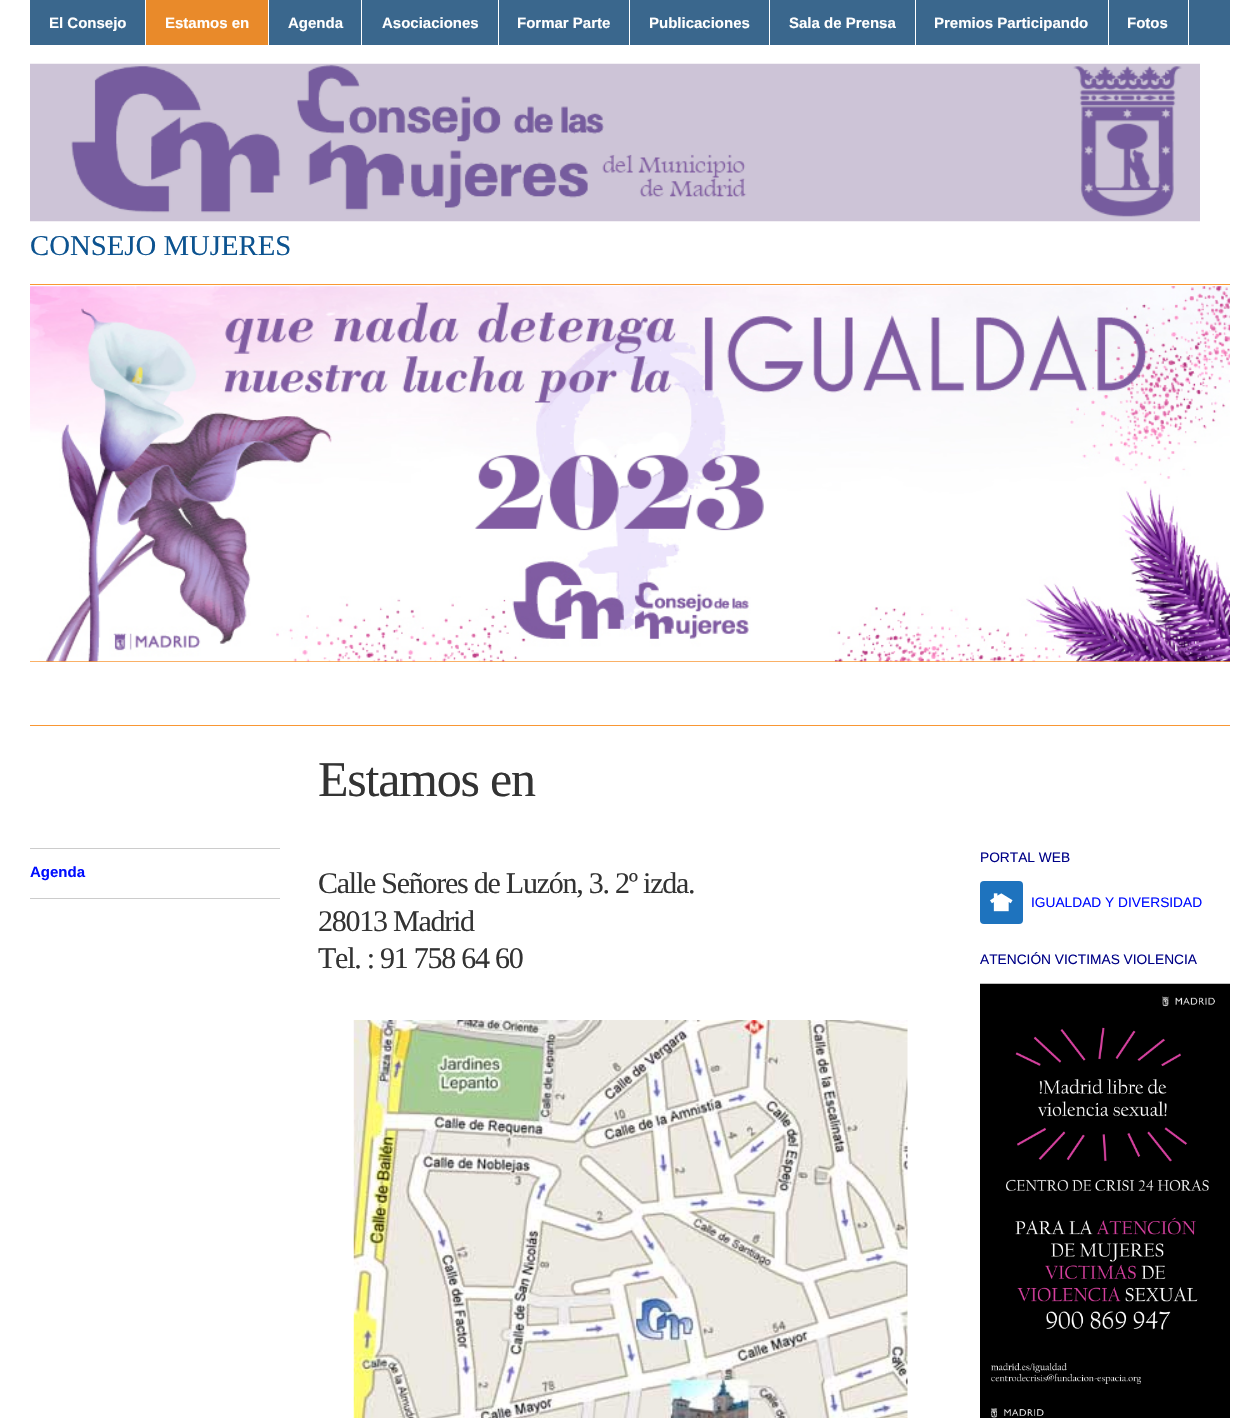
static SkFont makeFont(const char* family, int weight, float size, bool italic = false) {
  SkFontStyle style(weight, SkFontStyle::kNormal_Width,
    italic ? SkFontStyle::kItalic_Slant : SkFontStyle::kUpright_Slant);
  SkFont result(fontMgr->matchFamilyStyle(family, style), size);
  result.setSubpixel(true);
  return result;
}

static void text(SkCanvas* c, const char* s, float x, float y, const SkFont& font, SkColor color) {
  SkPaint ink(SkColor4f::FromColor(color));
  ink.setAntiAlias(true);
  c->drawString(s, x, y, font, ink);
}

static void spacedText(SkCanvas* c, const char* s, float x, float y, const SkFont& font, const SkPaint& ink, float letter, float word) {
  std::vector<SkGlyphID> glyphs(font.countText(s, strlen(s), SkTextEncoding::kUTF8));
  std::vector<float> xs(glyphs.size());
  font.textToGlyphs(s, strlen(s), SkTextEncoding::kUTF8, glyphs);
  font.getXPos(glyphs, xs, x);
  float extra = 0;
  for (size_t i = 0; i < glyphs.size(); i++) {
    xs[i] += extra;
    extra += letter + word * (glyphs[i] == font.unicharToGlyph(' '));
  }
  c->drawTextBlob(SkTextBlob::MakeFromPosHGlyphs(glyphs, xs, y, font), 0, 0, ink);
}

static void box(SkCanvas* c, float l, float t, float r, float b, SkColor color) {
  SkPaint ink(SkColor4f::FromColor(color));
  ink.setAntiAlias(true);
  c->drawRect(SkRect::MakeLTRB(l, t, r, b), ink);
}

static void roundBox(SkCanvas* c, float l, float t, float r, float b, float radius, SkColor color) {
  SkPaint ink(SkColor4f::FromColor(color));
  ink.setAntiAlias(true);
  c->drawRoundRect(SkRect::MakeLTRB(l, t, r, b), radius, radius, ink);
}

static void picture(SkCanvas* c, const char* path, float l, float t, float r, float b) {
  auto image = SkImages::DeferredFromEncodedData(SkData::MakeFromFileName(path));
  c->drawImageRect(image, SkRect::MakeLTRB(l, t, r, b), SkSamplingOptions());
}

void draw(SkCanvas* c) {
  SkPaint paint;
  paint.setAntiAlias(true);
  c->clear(0xffffffff);
  box(c, 30, 0, 1230, 45, 0xff3a678d);
  box(c, 145, 0, 146, 45, 0xffffffff);
  SkFont face1 = makeFont("Liberation Sans", 700, 15);
  text(c, "El Consejo", 49, 28, face1, 0xffffffff);
  box(c, 268, 0, 269, 45, 0xffffffff);
  box(c, 146, 0, 268, 45, 0xffe98a2a);
  text(c, "Estamos en", 165, 28, face1, 0xffffffff);
  box(c, 361, 0, 362, 45, 0xffffffff);
  text(c, "Agenda", 288, 28, face1, 0xffffffff);
  box(c, 498, 0, 499, 45, 0xffffffff);
  text(c, "Asociaciones", 382, 28, face1, 0xffffffff);
  box(c, 629, 0, 630, 45, 0xffffffff);
  text(c, "Formar Parte", 517, 28, face1, 0xffffffff);
  box(c, 769, 0, 770, 45, 0xffffffff);
  text(c, "Publicaciones", 649, 28, face1, 0xffffffff);
  box(c, 915, 0, 916, 45, 0xffffffff);
  text(c, "Sala de Prensa", 789, 28, face1, 0xffffffff);
  box(c, 1108, 0, 1109, 45, 0xffffffff);
  text(c, "Premios Participando", 934, 28, face1, 0xffffffff);
  box(c, 1188, 0, 1189, 45, 0xffffffff);
  text(c, "Fotos", 1127, 28, face1, 0xffffffff);
  picture(c, "img_01.png", 30, 63, 1200, 222);
  SkFont face2 = makeFont("Liberation Serif", 400, 28.75f);
  text(c, "CONSEJO MUJERES", 30, 255, face2, 0xff0c5390);
  box(c, 30, 284, 1230, 285, 0xfff99734);
  box(c, 30, 661, 1230, 662, 0xfff99734);
  picture(c, "img_02.png", 30, 286, 1230, 662);
  box(c, 30, 725, 1230, 726, 0xfff99734);
  SkFont face3 = makeFont("Liberation Serif", 400, 50);
  paint.setColor(0xff333333);
  spacedText(c, "Estamos en", 318, 796, face3, paint, -1.25f, 0);
  box(c, 30, 898, 280, 899, 0xffcccccc);
  box(c, 30, 848, 280, 849, 0xffcccccc);
  text(c, "Agenda", 30, 877, face1, 0xff000dff);
  SkFont face4 = makeFont("Liberation Serif", 400, 30);
  spacedText(c, "Calle Señores de Luzón, 3. 2º izda.", 318, 893, face4, paint, -1.25f, 0);
  spacedText(c, "28013 Madrid", 318, 931, face4, paint, -1.25f, 0);
  spacedText(c, "Tel. : 91 758 64 60", 318, 968, face4, paint, -1.25f, 0);
  picture(c, "img_03.png", 353, 1020, 908, 1418);
  SkFont face5 = makeFont("Liberation Sans", 400, 13.75f);
  text(c, "PORTAL WEB", 980, 862, face5, 0xff000287);
  roundBox(c, 980, 881, 1023, 924, 4, 0xff1e73be);
  picture(c, "img_04.png", 990, 893, 1013, 912);
  text(c, "IGUALDAD Y DIVERSIDAD", 1031, 907, face5, 0xff000dff);
  text(c, "ATENCIÓN VICTIMAS VIOLENCIA", 980, 964, face5, 0xff000287);
  picture(c, "img_05.png", 980, 983, 1230, 1418);
}
